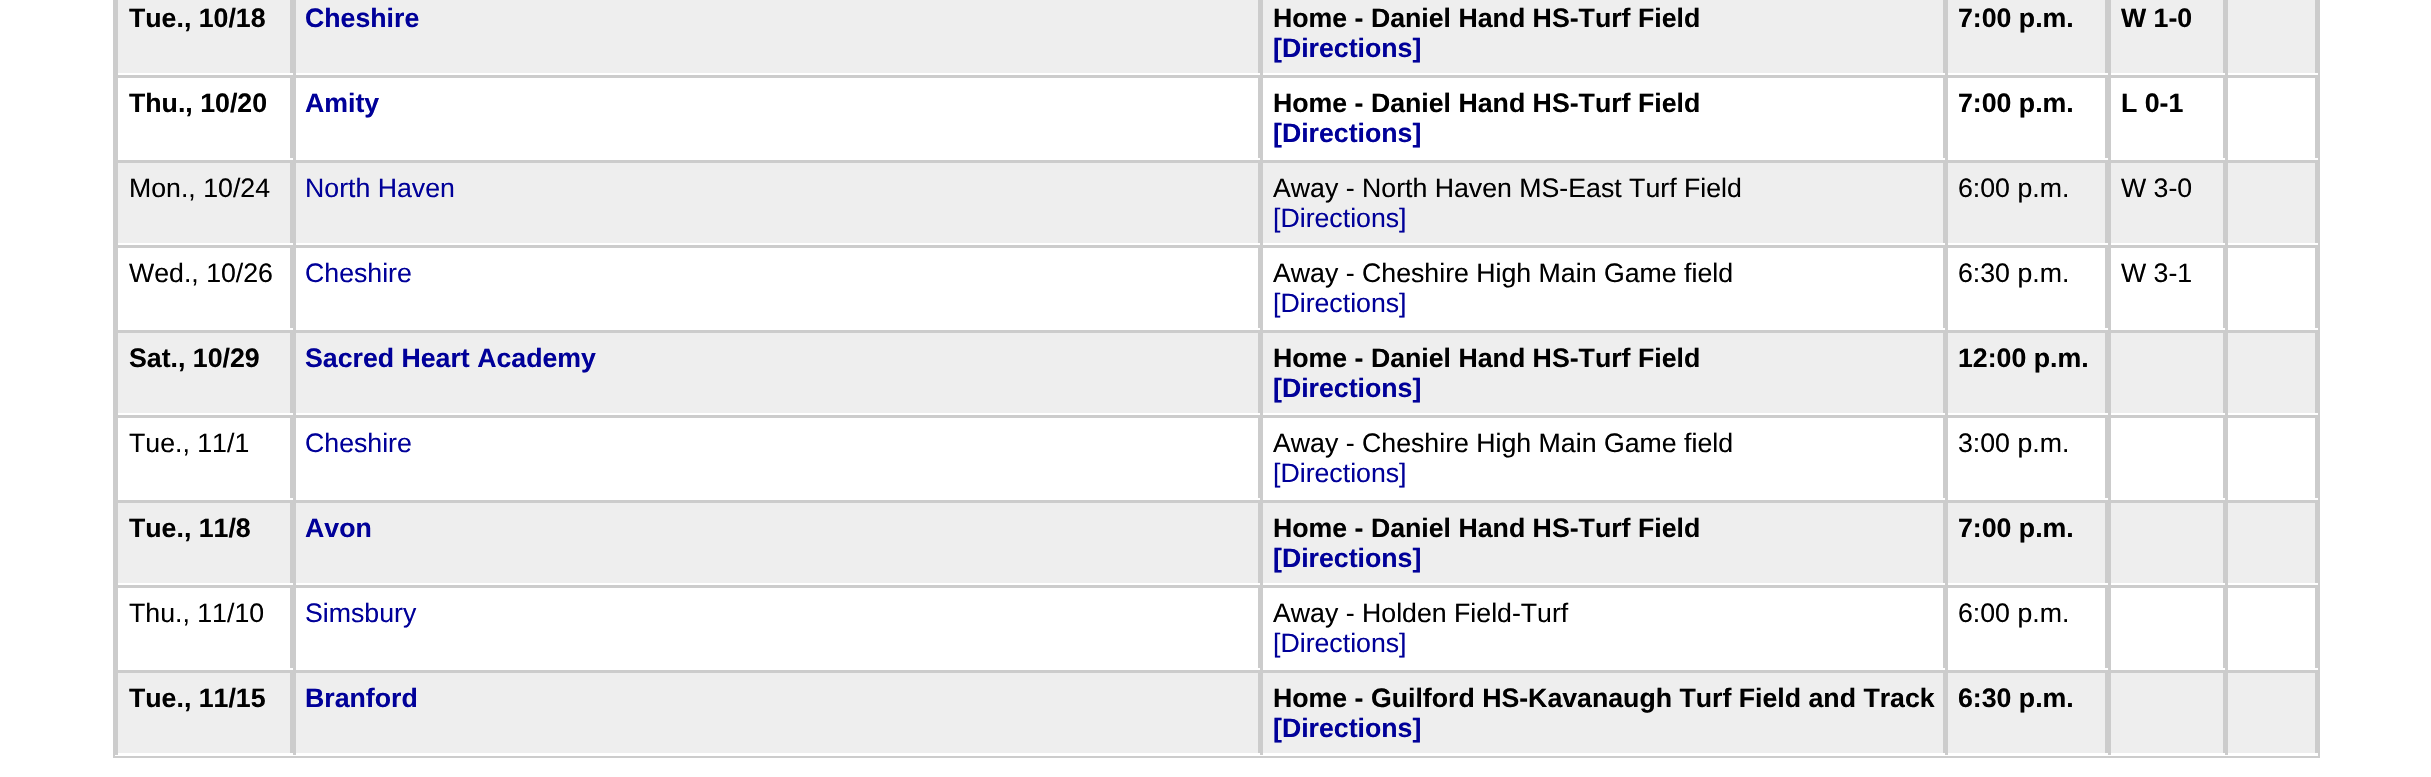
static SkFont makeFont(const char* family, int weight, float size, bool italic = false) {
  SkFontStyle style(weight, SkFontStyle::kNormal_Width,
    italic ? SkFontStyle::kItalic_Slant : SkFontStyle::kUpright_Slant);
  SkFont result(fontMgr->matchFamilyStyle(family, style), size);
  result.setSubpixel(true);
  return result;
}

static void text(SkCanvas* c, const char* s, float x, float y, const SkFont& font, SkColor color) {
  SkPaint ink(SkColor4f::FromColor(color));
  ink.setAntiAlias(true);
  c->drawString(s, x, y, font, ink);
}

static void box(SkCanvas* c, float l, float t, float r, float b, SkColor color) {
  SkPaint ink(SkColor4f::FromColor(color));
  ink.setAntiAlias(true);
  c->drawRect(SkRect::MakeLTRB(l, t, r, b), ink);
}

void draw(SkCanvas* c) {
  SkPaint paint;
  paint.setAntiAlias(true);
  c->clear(0xffffffff);
  box(c, 113, 0, 2320, 758, 0xffcccccc);
  box(c, 118, 0, 2315, 73, 0xffeeeeee);
  box(c, 290, 0, 293, 75, 0xffcccccc);
  box(c, 115, 73, 293, 75, 0xffffffff);
  box(c, 115, 73, 118, 75, 0xffcccccc);
  SkFont face1 = makeFont("Liberation Sans", 700, 26.7f);
  text(c, "Tue., 10/18", 129, 27, face1, 0xff000000);
  box(c, 1258, 0, 1260, 75, 0xffcccccc);
  box(c, 293, 73, 1260, 75, 0xffffffff);
  box(c, 293, 0, 296, 75, 0xffcccccc);
  text(c, "Cheshire", 305, 27, face1, 0xff000099);
  box(c, 1943, 0, 1945, 75, 0xffcccccc);
  box(c, 1260, 73, 1945, 75, 0xffffffff);
  box(c, 1260, 0, 1263, 75, 0xffcccccc);
  text(c, "Home - Daniel Hand HS-Turf Field", 1273, 27, face1, 0xff000000);
  text(c, "[Directions]", 1273, 57, face1, 0xff000099);
  box(c, 2105, 0, 2108, 75, 0xffcccccc);
  box(c, 1945, 73, 2108, 75, 0xffffffff);
  box(c, 1945, 0, 1948, 75, 0xffcccccc);
  text(c, "7:00 p.m.", 1958, 27, face1, 0xff000000);
  box(c, 2223, 0, 2225, 75, 0xffcccccc);
  box(c, 2108, 73, 2318, 75, 0xffffffff);
  box(c, 2108, 0, 2111, 75, 0xffcccccc);
  text(c, "W 1-0", 2121, 27, face1, 0xff000000);
  box(c, 2225, 0, 2228, 75, 0xffcccccc);
  box(c, 118, 78, 2315, 158, 0xffffffff);
  box(c, 290, 75, 293, 160, 0xffcccccc);
  box(c, 115, 158, 293, 160, 0xffffffff);
  box(c, 115, 158, 118, 160, 0xffcccccc);
  text(c, "Thu., 10/20", 129, 112, face1, 0xff000000);
  box(c, 1258, 75, 1260, 160, 0xffcccccc);
  box(c, 293, 158, 1260, 160, 0xffffffff);
  box(c, 293, 75, 296, 160, 0xffcccccc);
  text(c, "Amity", 305, 112, face1, 0xff000099);
  box(c, 1943, 75, 1945, 160, 0xffcccccc);
  box(c, 1260, 158, 1945, 160, 0xffffffff);
  box(c, 1260, 75, 1263, 160, 0xffcccccc);
  text(c, "Home - Daniel Hand HS-Turf Field", 1273, 112, face1, 0xff000000);
  text(c, "[Directions]", 1273, 142, face1, 0xff000099);
  box(c, 2105, 75, 2108, 160, 0xffcccccc);
  box(c, 1945, 158, 2108, 160, 0xffffffff);
  box(c, 1945, 75, 1948, 160, 0xffcccccc);
  text(c, "7:00 p.m.", 1958, 112, face1, 0xff000000);
  box(c, 2223, 75, 2225, 160, 0xffcccccc);
  box(c, 2108, 158, 2318, 160, 0xffffffff);
  box(c, 2108, 75, 2111, 160, 0xffcccccc);
  text(c, "L 0-1", 2121, 112, face1, 0xff000000);
  box(c, 2225, 75, 2228, 160, 0xffcccccc);
  box(c, 118, 163, 2315, 243, 0xffeeeeee);
  box(c, 290, 160, 293, 245, 0xffcccccc);
  box(c, 115, 243, 293, 245, 0xffffffff);
  box(c, 115, 243, 118, 245, 0xffcccccc);
  SkFont face2 = makeFont("Liberation Sans", 400, 26.7f);
  text(c, "Mon., 10/24", 129, 197, face2, 0xff000000);
  box(c, 1258, 160, 1260, 245, 0xffcccccc);
  box(c, 293, 243, 1260, 245, 0xffffffff);
  box(c, 293, 160, 296, 245, 0xffcccccc);
  text(c, "North Haven", 305, 197, face2, 0xff000099);
  box(c, 1943, 160, 1945, 245, 0xffcccccc);
  box(c, 1260, 243, 1945, 245, 0xffffffff);
  box(c, 1260, 160, 1263, 245, 0xffcccccc);
  text(c, "Away - North Haven MS-East Turf Field", 1273, 197, face2, 0xff000000);
  text(c, "[Directions]", 1273, 227, face2, 0xff000099);
  box(c, 2105, 160, 2108, 245, 0xffcccccc);
  box(c, 1945, 243, 2108, 245, 0xffffffff);
  box(c, 1945, 160, 1948, 245, 0xffcccccc);
  text(c, "6:00 p.m.", 1958, 197, face2, 0xff000000);
  box(c, 2223, 160, 2225, 245, 0xffcccccc);
  box(c, 2108, 243, 2318, 245, 0xffffffff);
  box(c, 2108, 160, 2111, 245, 0xffcccccc);
  text(c, "W 3-0", 2121, 197, face2, 0xff000000);
  box(c, 2225, 160, 2228, 245, 0xffcccccc);
  box(c, 118, 248, 2315, 328, 0xffffffff);
  box(c, 290, 245, 293, 330, 0xffcccccc);
  box(c, 115, 328, 293, 330, 0xffffffff);
  box(c, 115, 328, 118, 330, 0xffcccccc);
  text(c, "Wed., 10/26", 129, 282, face2, 0xff000000);
  box(c, 1258, 245, 1260, 330, 0xffcccccc);
  box(c, 293, 328, 1260, 330, 0xffffffff);
  box(c, 293, 245, 296, 330, 0xffcccccc);
  text(c, "Cheshire", 305, 282, face2, 0xff000099);
  box(c, 1943, 245, 1945, 330, 0xffcccccc);
  box(c, 1260, 328, 1945, 330, 0xffffffff);
  box(c, 1260, 245, 1263, 330, 0xffcccccc);
  text(c, "Away - Cheshire High Main Game field", 1273, 282, face2, 0xff000000);
  text(c, "[Directions]", 1273, 312, face2, 0xff000099);
  box(c, 2105, 245, 2108, 330, 0xffcccccc);
  box(c, 1945, 328, 2108, 330, 0xffffffff);
  box(c, 1945, 245, 1948, 330, 0xffcccccc);
  text(c, "6:30 p.m.", 1958, 282, face2, 0xff000000);
  box(c, 2223, 245, 2225, 330, 0xffcccccc);
  box(c, 2108, 328, 2318, 330, 0xffffffff);
  box(c, 2108, 245, 2111, 330, 0xffcccccc);
  text(c, "W 3-1", 2121, 282, face2, 0xff000000);
  box(c, 2225, 245, 2228, 330, 0xffcccccc);
  box(c, 118, 333, 2315, 413, 0xffeeeeee);
  box(c, 2223, 330, 2225, 415, 0xffcccccc);
  box(c, 2108, 413, 2318, 415, 0xffffffff);
  box(c, 2108, 330, 2111, 415, 0xffcccccc);
  box(c, 290, 330, 293, 415, 0xffcccccc);
  box(c, 115, 413, 293, 415, 0xffffffff);
  box(c, 115, 413, 118, 415, 0xffcccccc);
  text(c, "Sat., 10/29", 129, 367, face1, 0xff000000);
  box(c, 1258, 330, 1260, 415, 0xffcccccc);
  box(c, 293, 413, 1260, 415, 0xffffffff);
  box(c, 293, 330, 296, 415, 0xffcccccc);
  text(c, "Sacred Heart Academy", 305, 367, face1, 0xff000099);
  box(c, 1943, 330, 1945, 415, 0xffcccccc);
  box(c, 1260, 413, 1945, 415, 0xffffffff);
  box(c, 1260, 330, 1263, 415, 0xffcccccc);
  text(c, "Home - Daniel Hand HS-Turf Field", 1273, 367, face1, 0xff000000);
  text(c, "[Directions]", 1273, 397, face1, 0xff000099);
  box(c, 2105, 330, 2108, 415, 0xffcccccc);
  box(c, 1945, 413, 2108, 415, 0xffffffff);
  box(c, 1945, 330, 1948, 415, 0xffcccccc);
  text(c, "12:00 p.m.", 1958, 367, face1, 0xff000000);
  box(c, 2225, 330, 2228, 415, 0xffcccccc);
  box(c, 118, 418, 2315, 498, 0xffffffff);
  box(c, 2223, 415, 2225, 500, 0xffcccccc);
  box(c, 2108, 498, 2318, 500, 0xffffffff);
  box(c, 2108, 415, 2111, 500, 0xffcccccc);
  box(c, 290, 415, 293, 500, 0xffcccccc);
  box(c, 115, 498, 293, 500, 0xffffffff);
  box(c, 115, 498, 118, 500, 0xffcccccc);
  text(c, "Tue., 11/1", 129, 452, face2, 0xff000000);
  box(c, 1258, 415, 1260, 500, 0xffcccccc);
  box(c, 293, 498, 1260, 500, 0xffffffff);
  box(c, 293, 415, 296, 500, 0xffcccccc);
  text(c, "Cheshire", 305, 452, face2, 0xff000099);
  box(c, 1943, 415, 1945, 500, 0xffcccccc);
  box(c, 1260, 498, 1945, 500, 0xffffffff);
  box(c, 1260, 415, 1263, 500, 0xffcccccc);
  text(c, "Away - Cheshire High Main Game field", 1273, 452, face2, 0xff000000);
  text(c, "[Directions]", 1273, 482, face2, 0xff000099);
  box(c, 2105, 415, 2108, 500, 0xffcccccc);
  box(c, 1945, 498, 2108, 500, 0xffffffff);
  box(c, 1945, 415, 1948, 500, 0xffcccccc);
  text(c, "3:00 p.m.", 1958, 452, face2, 0xff000000);
  box(c, 2225, 415, 2228, 500, 0xffcccccc);
  box(c, 118, 503, 2315, 583, 0xffeeeeee);
  box(c, 2223, 500, 2225, 585, 0xffcccccc);
  box(c, 2108, 583, 2318, 585, 0xffffffff);
  box(c, 2108, 500, 2111, 585, 0xffcccccc);
  box(c, 290, 500, 293, 585, 0xffcccccc);
  box(c, 115, 583, 293, 585, 0xffffffff);
  box(c, 115, 583, 118, 585, 0xffcccccc);
  text(c, "Tue., 11/8", 129, 537, face1, 0xff000000);
  box(c, 1258, 500, 1260, 585, 0xffcccccc);
  box(c, 293, 583, 1260, 585, 0xffffffff);
  box(c, 293, 500, 296, 585, 0xffcccccc);
  text(c, "Avon", 305, 537, face1, 0xff000099);
  box(c, 1943, 500, 1945, 585, 0xffcccccc);
  box(c, 1260, 583, 1945, 585, 0xffffffff);
  box(c, 1260, 500, 1263, 585, 0xffcccccc);
  text(c, "Home - Daniel Hand HS-Turf Field", 1273, 537, face1, 0xff000000);
  text(c, "[Directions]", 1273, 567, face1, 0xff000099);
  box(c, 2105, 500, 2108, 585, 0xffcccccc);
  box(c, 1945, 583, 2108, 585, 0xffffffff);
  box(c, 1945, 500, 1948, 585, 0xffcccccc);
  text(c, "7:00 p.m.", 1958, 537, face1, 0xff000000);
  box(c, 2225, 500, 2228, 585, 0xffcccccc);
  box(c, 118, 588, 2315, 668, 0xffffffff);
  box(c, 2223, 585, 2225, 670, 0xffcccccc);
  box(c, 2108, 668, 2318, 670, 0xffffffff);
  box(c, 2108, 585, 2111, 670, 0xffcccccc);
  box(c, 290, 585, 293, 670, 0xffcccccc);
  box(c, 115, 668, 293, 670, 0xffffffff);
  box(c, 115, 668, 118, 670, 0xffcccccc);
  text(c, "Thu., 11/10", 129, 622, face2, 0xff000000);
  box(c, 1258, 585, 1260, 670, 0xffcccccc);
  box(c, 293, 668, 1260, 670, 0xffffffff);
  box(c, 293, 585, 296, 670, 0xffcccccc);
  text(c, "Simsbury", 305, 622, face2, 0xff000099);
  box(c, 1943, 585, 1945, 670, 0xffcccccc);
  box(c, 1260, 668, 1945, 670, 0xffffffff);
  box(c, 1260, 585, 1263, 670, 0xffcccccc);
  text(c, "Away - Holden Field-Turf", 1273, 622, face2, 0xff000000);
  text(c, "[Directions]", 1273, 652, face2, 0xff000099);
  box(c, 2105, 585, 2108, 670, 0xffcccccc);
  box(c, 1945, 668, 2108, 670, 0xffffffff);
  box(c, 1945, 585, 1948, 670, 0xffcccccc);
  text(c, "6:00 p.m.", 1958, 622, face2, 0xff000000);
  box(c, 2225, 585, 2228, 670, 0xffcccccc);
  box(c, 118, 673, 2315, 753, 0xffeeeeee);
  box(c, 2223, 670, 2225, 755, 0xffcccccc);
  box(c, 2108, 753, 2318, 756, 0xffffffff);
  box(c, 2108, 670, 2111, 755, 0xffcccccc);
  box(c, 290, 670, 293, 755, 0xffcccccc);
  box(c, 115, 753, 293, 756, 0xffffffff);
  box(c, 115, 753, 118, 755, 0xffcccccc);
  text(c, "Tue., 11/15", 129, 707, face1, 0xff000000);
  box(c, 1258, 670, 1260, 755, 0xffcccccc);
  box(c, 293, 753, 1260, 756, 0xffffffff);
  box(c, 293, 670, 296, 755, 0xffcccccc);
  text(c, "Branford", 305, 707, face1, 0xff000099);
  box(c, 1943, 670, 1945, 755, 0xffcccccc);
  box(c, 1260, 753, 1945, 756, 0xffffffff);
  box(c, 1260, 670, 1263, 755, 0xffcccccc);
  text(c, "Home - Guilford HS-Kavanaugh Turf Field and Track", 1273, 707, face1, 0xff000000);
  text(c, "[Directions]", 1273, 737, face1, 0xff000099);
  box(c, 2105, 670, 2108, 755, 0xffcccccc);
  box(c, 1945, 753, 2108, 756, 0xffffffff);
  box(c, 1945, 670, 1948, 755, 0xffcccccc);
  text(c, "6:30 p.m.", 1958, 707, face1, 0xff000000);
  box(c, 2225, 670, 2228, 755, 0xffcccccc);
}
